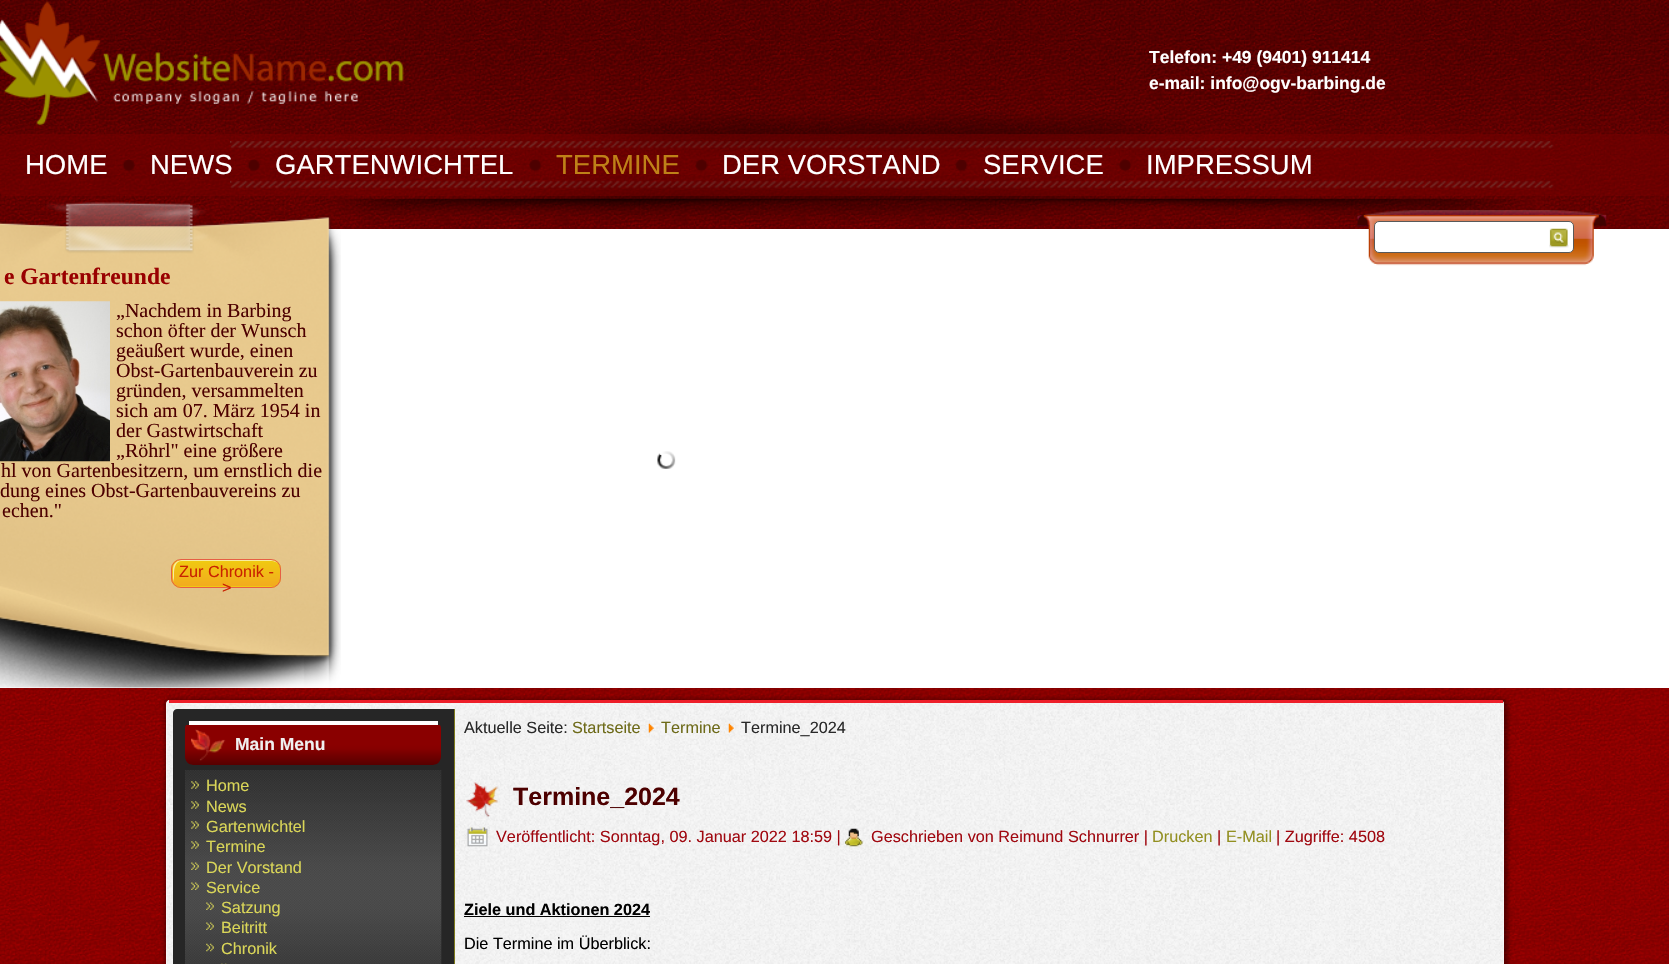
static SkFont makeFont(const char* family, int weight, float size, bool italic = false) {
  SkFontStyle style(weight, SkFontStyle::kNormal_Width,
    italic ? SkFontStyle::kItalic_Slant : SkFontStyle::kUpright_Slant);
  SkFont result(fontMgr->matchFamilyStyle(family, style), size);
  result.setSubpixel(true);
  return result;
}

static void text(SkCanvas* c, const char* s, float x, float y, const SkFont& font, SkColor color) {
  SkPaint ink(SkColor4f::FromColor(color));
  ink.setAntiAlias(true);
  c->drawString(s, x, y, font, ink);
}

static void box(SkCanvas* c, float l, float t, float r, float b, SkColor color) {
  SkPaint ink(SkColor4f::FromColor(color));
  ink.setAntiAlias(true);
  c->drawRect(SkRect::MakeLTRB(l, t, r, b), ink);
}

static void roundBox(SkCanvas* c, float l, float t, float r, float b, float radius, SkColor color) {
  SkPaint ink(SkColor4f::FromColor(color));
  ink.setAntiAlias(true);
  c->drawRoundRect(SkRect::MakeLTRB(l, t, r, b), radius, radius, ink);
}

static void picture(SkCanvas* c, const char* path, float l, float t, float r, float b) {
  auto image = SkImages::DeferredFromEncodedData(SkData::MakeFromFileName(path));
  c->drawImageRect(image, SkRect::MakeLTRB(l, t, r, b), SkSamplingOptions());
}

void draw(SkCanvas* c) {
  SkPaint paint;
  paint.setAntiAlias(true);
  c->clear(0xffffffff);
  picture(c, "img_01.png", 0, 0, 1669, 964);
  picture(c, "img_02.png", 0, 1, 404, 126);
  SkFont face1 = makeFont("Liberation Sans", 700, 17.5f);
  text(c, "Telefon: +49 (9401) 911414", 1149, 63, face1, 0xffffffff);
  text(c, "e-mail: info@ogv-barbing.de", 1149, 89, face1, 0xffffffff);
  picture(c, "img_14.png", 315, 198, 1534, 221);
  box(c, 0, 229, 1669, 688, 0xffffffff);
  picture(c, "img_15.png", 1357, 210, 1607, 266);
  paint.setColor(0xffffffff);
  c->drawRoundRect(SkRect::MakeLTRB(1374.5f, 221.5f, 1573.5f, 252.5f), 4.5f, 4.5f, paint);
  paint.setStyle(SkPaint::kStroke_Style);
  paint.setStrokeWidth(1);
  paint.setColor(0xff595959);
  c->drawRoundRect(SkRect::MakeLTRB(1374.5f, 221.5f, 1573.5f, 252.5f), 4.5f, 4.5f, paint);
  picture(c, "img_03.png", 1549, 228, 1569, 248);
  picture(c, "img_11.png", 230, 141, 1554, 189);
  picture(c, "img_10.png", 547, 110, 1206, 157);
  picture(c, "img_12.png", 481, 175, 1141, 223);
  roundBox(c, 0, 134, 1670, 196, 4, 0x80750000);
  SkFont face2 = makeFont("Liberation Sans", 400, 27.5f);
  text(c, "HOME", 25, 174, face2, 0xffffffff);
  picture(c, "img_04.png", 122, 159, 135, 172);
  text(c, "NEWS", 150, 174, face2, 0xffffffff);
  picture(c, "img_05.png", 247, 159, 260, 172);
  text(c, "GARTENWICHTEL", 275, 174, face2, 0xffffffff);
  picture(c, "img_06.png", 529, 159, 542, 171);
  text(c, "TERMINE", 556, 174, face2, 0xffbf8118);
  picture(c, "img_07.png", 695, 159, 708, 172);
  text(c, "DER VORSTAND", 722, 174, face2, 0xffffffff);
  picture(c, "img_08.png", 955, 159, 968, 172);
  text(c, "SERVICE", 983, 174, face2, 0xffffffff);
  picture(c, "img_09.png", 1119, 159, 1132, 172);
  text(c, "IMPRESSUM", 1146, 174, face2, 0xffffffff);
  picture(c, "img_13.png", 0, 202, 341, 688);
  picture(c, "img_16.png", 657, 451, 676, 469);
  SkFont face3 = makeFont("Liberation Serif", 700, 23.5f);
  text(c, "e Gartenfreunde", 4, 284, face3, 0xff990000);
  picture(c, "img_17.png", 0, 301, 110, 462);
  SkFont face4 = makeFont("Liberation Serif", 400, 20);
  text(c, "„Nachdem in Barbing", 116, 317, face4, 0xff4d0000);
  text(c, "schon öfter der Wunsch", 116, 337, face4, 0xff4d0000);
  text(c, "geäußert wurde, einen", 116, 357, face4, 0xff4d0000);
  text(c, "Obst-Gartenbauverein zu", 116, 377, face4, 0xff4d0000);
  text(c, "gründen, versammelten", 116, 397, face4, 0xff4d0000);
  text(c, "sich am 07. März 1954 in", 116, 417, face4, 0xff4d0000);
  text(c, "der Gastwirtschaft", 116, 437, face4, 0xff4d0000);
  text(c, "„Röhrl\" eine größere", 116, 457, face4, 0xff4d0000);
  text(c, "hl von Gartenbesitzern, um ernstlich die", 1, 477, face4, 0xff4d0000);
  text(c, "dung eines Obst-Gartenbauvereins zu", 0, 497, face4, 0xff4d0000);
  text(c, "echen.\"", 2, 517, face4, 0xff4d0000);
  c->save();
  c->clipPath(SkPathBuilder().moveTo(181, 559).lineTo(271, 559).cubicTo(276.5f, 559, 281, 563.5f, 281, 569).lineTo(281, 578).cubicTo(281, 583.5f, 276.5f, 588, 271, 588).lineTo(181, 588).cubicTo(175.5f, 588, 171, 583.5f, 171, 578).lineTo(171, 569).cubicTo(171, 563.5f, 175.5f, 559, 181, 559).close().detach(), true);
  paint.setStyle(SkPaint::kFill_Style);
  {
    const SkColor colors[] = {0xfff0c911, 0xfff2ab1e};
    const float stops[] = {0.05f, 1};
    const SkPoint ends[] = {{173, 560}, {173, 586}};
    paint.setShader(SkGradientShader::MakeLinear(ends, colors, stops, 2, SkTileMode::kClamp));
    paint.setAlpha(255);
  }
  c->drawRect(SkRect::MakeLTRB(171, 560, 281, 586), paint);
  {
    const SkColor colors[] = {0xfff0c911, 0xfff2ab1e};
    const float stops[] = {0.05f, 1};
    const SkPoint ends[] = {{173, 586}, {173, 613}};
    paint.setShader(SkGradientShader::MakeLinear(ends, colors, stops, 2, SkTileMode::kClamp));
    paint.setAlpha(255);
  }
  c->drawRect(SkRect::MakeLTRB(171, 586, 281, 588), paint);
  c->restore();
  paint.setShader(nullptr);
  paint.setColor(0xfff9eca0);
  c->drawPath(SkPathBuilder().moveTo(182, 561).lineTo(272, 561).cubicTo(274, 561, 276, 562, 278, 563).cubicTo(276, 561, 274, 560, 271, 560).lineTo(182, 560).cubicTo(177, 560, 173, 564, 173, 569).lineTo(173, 577).cubicTo(173, 579, 174, 581, 174, 582).lineTo(174, 574).cubicTo(174, 569, 175, 561, 182, 561).close().detach(), paint);
  paint.setStyle(SkPaint::kStroke_Style);
  paint.setColor(0xffe65f44);
  c->drawRoundRect(SkRect::MakeLTRB(171.5f, 559.5f, 280.5f, 587.5f), 9.5f, 9.5f, paint);
  SkFont face5 = makeFont("Liberation Sans", 400, 16.25f);
  text(c, "Zur Chronik -", 179, 577, face5, 0xffc92200);
  text(c, ">", 222, 593, face5, 0xffc92200);
  paint.setStyle(SkPaint::kFill_Style);
  paint.setColor(0x66000000);
  paint.setMaskFilter(SkMaskFilter::MakeBlur(kNormal_SkBlurStyle, 2));
  c->drawRoundRect(SkRect::MakeLTRB(165, 699, 1508, 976), 6, 6, paint);
  paint.setMaskFilter(nullptr);
  paint.setColor(0xffffffff);
  c->drawPath(SkPathBuilder().moveTo(170, 700).lineTo(1500, 700).cubicTo(1502, 700, 1504, 702, 1504, 704).lineTo(1504, 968).lineTo(166, 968).lineTo(166, 704).cubicTo(166, 702, 168, 700, 170, 700).close().detach(), paint);
  picture(c, "img_18.png", 166, 700, 1504, 964);
  box(c, 169, 700, 1503, 703, 0xebed0c18);
  paint.setColor(0xff262626);
  c->drawPath(SkPathBuilder().moveTo(177, 709).lineTo(455, 709).lineTo(455, 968).lineTo(173, 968).lineTo(173, 713).cubicTo(173, 711, 175, 709, 177, 709).close().detach(), paint);
  box(c, 454, 709, 455, 964, 0xff7d7a1c);
  c->save();
  c->clipPath(SkPathBuilder().moveTo(193, 721).lineTo(433, 721).cubicTo(437.5f, 721, 441, 724.5f, 441, 729).lineTo(441, 757).cubicTo(441, 761.5f, 437.5f, 765, 433, 765).lineTo(193, 765).cubicTo(188.5f, 765, 185, 761.5f, 185, 757).lineTo(185, 729).cubicTo(185, 724.5f, 188.5f, 721, 193, 721).close().detach(), true);
  {
    const SkColor colors[] = {0xff8a0000, 0xff8a0000, 0xff850000, 0xff570000};
    const float stops[] = {0, 0.5f, 0.6f, 1};
    const SkPoint ends[] = {{313, 725}, {313, 765}};
    paint.setShader(SkGradientShader::MakeLinear(ends, colors, stops, 4, SkTileMode::kClamp));
    paint.setAlpha(255);
  }
  c->drawPath(SkPathBuilder().moveTo(185, 725).lineTo(441, 725).lineTo(441, 757).cubicTo(441, 761.5f, 437.5f, 765, 433, 765).lineTo(193, 765).cubicTo(188.5f, 765, 185, 761.5f, 185, 757).close().detach(), paint);
  c->restore();
  box(c, 189, 721, 438, 725, 0xffffffff);
  picture(c, "img_19.png", 191, 729, 226, 761);
  text(c, "Main Menu", 235, 750, face1, 0xfff0f0f0);
  picture(c, "img_20.png", 185, 770, 442, 964);
  picture(c, "img_21.png", 191, 781, 199, 789);
  text(c, "Home", 206, 791, face5, 0xffdad658);
  picture(c, "img_22.png", 191, 801, 199, 809);
  text(c, "News", 206, 812, face5, 0xffdad658);
  picture(c, "img_23.png", 191, 821, 199, 829);
  text(c, "Gartenwichtel", 206, 832, face5, 0xffdad658);
  picture(c, "img_24.png", 191, 841, 199, 849);
  text(c, "Termine", 206, 852, face5, 0xffdad658);
  picture(c, "img_25.png", 191, 862, 199, 870);
  text(c, "Der Vorstand", 206, 873, face5, 0xffdad658);
  picture(c, "img_26.png", 191, 882, 199, 890);
  text(c, "Service", 206, 893, face5, 0xffdad658);
  picture(c, "img_27.png", 206, 902, 214, 910);
  text(c, "Satzung", 221, 913, face5, 0xffdad658);
  picture(c, "img_28.png", 206, 922, 214, 930);
  text(c, "Beitritt", 221, 933, face5, 0xffdad658);
  picture(c, "img_29.png", 206, 943, 214, 952);
  text(c, "Chronik", 221, 954, face5, 0xffdad658);
  picture(c, "img_30.png", 221, 963, 227, 964);
  text(c, "Aktuelle Seite:", 464, 733, face5, 0xff292929);
  text(c, "Startseite", 572, 733, face5, 0xff6d6a18);
  picture(c, "img_31.png", 648, 723, 654, 733);
  text(c, "Termine", 661, 733, face5, 0xff6d6a18);
  picture(c, "img_32.png", 728, 723, 734, 733);
  text(c, "Termine_2024", 741, 733, face5, 0xff292929);
  picture(c, "img_33.png", 466, 782, 499, 817);
  SkFont face6 = makeFont("Liberation Sans", 700, 25);
  text(c, "Termine_2024", 513, 805, face6, 0xff4d0000);
  picture(c, "img_34.png", 467, 827, 488, 847);
  text(c, "Veröffentlicht: Sonntag, 09. Januar 2022 18:59 |", 496, 842, face5, 0xffa00810);
  picture(c, "img_35.png", 845, 828, 863, 847);
  text(c, "Geschrieben von Reimund Schnurrer |", 871, 842, face5, 0xffa00810);
  text(c, "Drucken", 1152, 842, face5, 0xff928f20);
  text(c, "|", 1217, 842, face5, 0xffa00810);
  text(c, "E-Mail", 1226, 842, face5, 0xff928f20);
  text(c, "| Zugriffe: 4508", 1276, 842, face5, 0xffa00810);
  SkFont face7 = makeFont("Liberation Sans", 700, 16.25f);
  text(c, "Ziele und Aktionen 2024", 464, 915, face7, 0xff000000);
  box(c, 464, 916, 650, 917, 0xff000000);
  text(c, "Die Termine im Überblick:", 464, 949, face5, 0xff000000);
}
